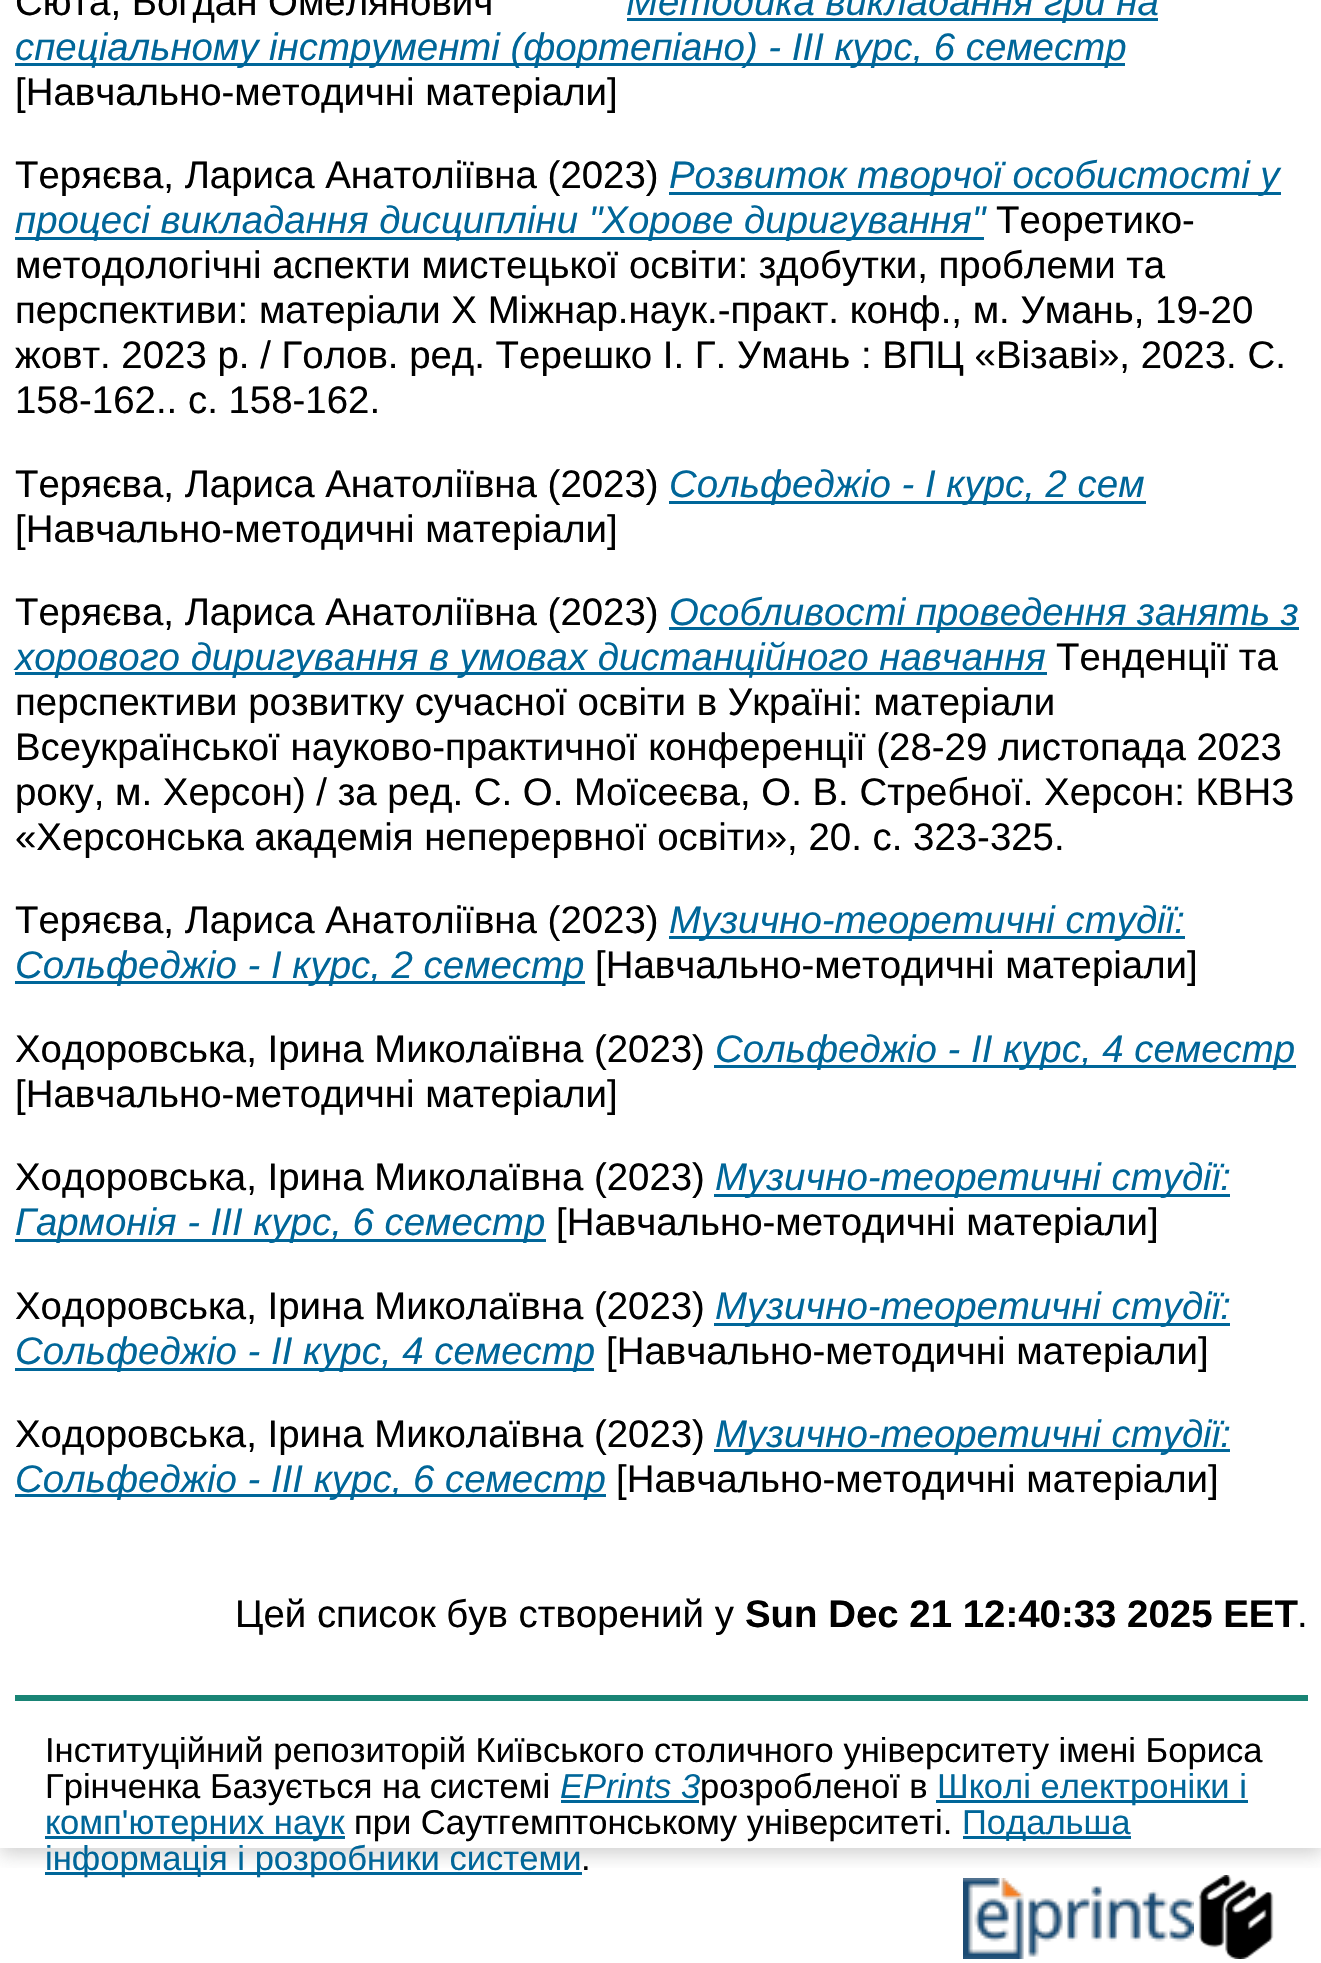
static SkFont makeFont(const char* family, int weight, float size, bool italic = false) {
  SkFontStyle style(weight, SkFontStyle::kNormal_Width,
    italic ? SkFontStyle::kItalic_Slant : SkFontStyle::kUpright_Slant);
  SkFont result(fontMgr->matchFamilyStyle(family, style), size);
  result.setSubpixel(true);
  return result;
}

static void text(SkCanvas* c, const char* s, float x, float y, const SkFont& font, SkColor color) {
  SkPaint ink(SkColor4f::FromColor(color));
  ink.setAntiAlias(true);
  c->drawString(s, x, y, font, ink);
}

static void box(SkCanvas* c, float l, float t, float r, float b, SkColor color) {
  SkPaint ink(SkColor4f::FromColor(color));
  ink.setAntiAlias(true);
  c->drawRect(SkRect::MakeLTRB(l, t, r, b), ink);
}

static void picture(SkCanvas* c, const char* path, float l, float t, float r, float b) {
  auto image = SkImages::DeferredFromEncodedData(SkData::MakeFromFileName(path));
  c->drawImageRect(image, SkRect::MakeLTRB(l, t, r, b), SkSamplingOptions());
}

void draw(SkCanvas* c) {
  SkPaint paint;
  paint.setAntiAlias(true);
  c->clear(0xffffffff);
  c->save();
  c->clipRect(SkRect::MakeLTRB(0, 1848, 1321, 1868));
  paint.setColor(0x4d646464);
  paint.setMaskFilter(SkMaskFilter::MakeBlur(kNormal_SkBlurStyle, 9));
  c->drawRect(SkRect::MakeLTRB(0, -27, 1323, 1854), paint);
  paint.setMaskFilter(nullptr);
  c->restore();
  SkFont face1 = makeFont("Liberation Sans", 400, 38.4f);
  text(c, "Сюта, Богдан Омелянович", 15, 15, face1, 0xff000000);
  box(c, 627, 18, 1158, 21, 0xff006699);
  SkFont face2 = makeFont("Liberation Sans", 400, 38.4f, true);
  text(c, "Методика викладання гри на", 626, 15, face2, 0xff006699);
  box(c, 15, 63, 1125, 66, 0xff006699);
  text(c, "спеціальному інструменті (фортепіано) - ІІІ курс, 6 семестр", 15, 60, face2, 0xff006699);
  text(c, "[Навчально-методичні матеріали]", 15, 105, face1, 0xff000000);
  text(c, "Теряєва, Лариса Анатоліївна (2023)", 15, 188, face1, 0xff000000);
  box(c, 669, 192, 1281, 195, 0xff006699);
  text(c, "Розвиток творчої особистості у", 669, 188, face2, 0xff006699);
  box(c, 15, 237, 984, 240, 0xff006699);
  text(c, "процесі викладання дисципліни \"Хорове диригування\"", 15, 233, face2, 0xff006699);
  text(c, "Теоретико-", 996, 233, face1, 0xff000000);
  text(c, "методологічні аспекти мистецької освіти: здобутки, проблеми та", 15, 278, face1, 0xff000000);
  text(c, "перспективи: матеріали Х Міжнар.наук.-практ. конф., м. Умань, 19-20", 15, 323, face1, 0xff000000);
  text(c, "жовт. 2023 р. / Голов. ред. Терешко І. Г. Умань : ВПЦ «Візаві», 2023. С.", 15, 368, face1, 0xff000000);
  text(c, "158-162.. с. 158-162.", 15, 413, face1, 0xff000000);
  text(c, "Теряєва, Лариса Анатоліївна (2023)", 15, 497, face1, 0xff000000);
  box(c, 669, 501, 1146, 504, 0xff006699);
  text(c, "Сольфеджіо - І курс, 2 сем", 669, 497, face2, 0xff006699);
  text(c, "[Навчально-методичні матеріали]", 15, 542, face1, 0xff000000);
  text(c, "Теряєва, Лариса Анатоліївна (2023)", 15, 625, face1, 0xff000000);
  box(c, 669, 627, 1299, 630, 0xff006699);
  text(c, "Особливості проведення занять з", 669, 625, face2, 0xff006699);
  box(c, 15, 672, 1047, 675, 0xff006699);
  text(c, "хорового диригування в умовах дистанційного навчання", 15, 670, face2, 0xff006699);
  text(c, "Тенденції та", 1056, 670, face1, 0xff000000);
  text(c, "перспективи розвитку сучасної освіти в Україні: матеріали", 15, 715, face1, 0xff000000);
  text(c, "Всеукраїнської науково-практичної конференції (28-29 листопада 2023", 15, 760, face1, 0xff000000);
  text(c, "року, м. Херсон) / за ред. С. О. Моїсеєва, О. В. Стребної. Херсон: КВНЗ", 15, 805, face1, 0xff000000);
  text(c, "«Херсонська академія неперервної освіти», 20. с. 323-325.", 15, 850, face1, 0xff000000);
  text(c, "Теряєва, Лариса Анатоліївна (2023)", 15, 933, face1, 0xff000000);
  box(c, 669, 936, 1185, 939, 0xff006699);
  text(c, "Музично-теоретичні студії:", 669, 933, face2, 0xff006699);
  box(c, 15, 981, 585, 984, 0xff006699);
  text(c, "Сольфеджіо - І курс, 2 семестр", 15, 978, face2, 0xff006699);
  text(c, "[Навчально-методичні матеріали]", 595, 978, face1, 0xff000000);
  text(c, "Ходоровська, Ірина Миколаївна (2023)", 15, 1062, face1, 0xff000000);
  box(c, 714, 1065, 1296, 1068, 0xff006699);
  text(c, "Сольфеджіо - ІІ курс, 4 семестр", 715, 1062, face2, 0xff006699);
  text(c, "[Навчально-методичні матеріали]", 15, 1107, face1, 0xff000000);
  text(c, "Ходоровська, Ірина Миколаївна (2023)", 15, 1190, face1, 0xff000000);
  box(c, 714, 1194, 1230, 1197, 0xff006699);
  text(c, "Музично-теоретичні студії:", 715, 1190, face2, 0xff006699);
  box(c, 15, 1239, 546, 1242, 0xff006699);
  text(c, "Гармонія - ІІІ курс, 6 семестр", 15, 1235, face2, 0xff006699);
  text(c, "[Навчально-методичні матеріали]", 556, 1235, face1, 0xff000000);
  text(c, "Ходоровська, Ірина Миколаївна (2023)", 15, 1319, face1, 0xff000000);
  box(c, 714, 1323, 1230, 1326, 0xff006699);
  text(c, "Музично-теоретичні студії:", 715, 1319, face2, 0xff006699);
  box(c, 15, 1368, 594, 1371, 0xff006699);
  text(c, "Сольфеджіо - ІІ курс, 4 семестр", 15, 1364, face2, 0xff006699);
  text(c, "[Навчально-методичні матеріали]", 606, 1364, face1, 0xff000000);
  text(c, "Ходоровська, Ірина Миколаївна (2023)", 15, 1447, face1, 0xff000000);
  box(c, 714, 1449, 1230, 1452, 0xff006699);
  text(c, "Музично-теоретичні студії:", 715, 1447, face2, 0xff006699);
  box(c, 15, 1494, 606, 1497, 0xff006699);
  text(c, "Сольфеджіо - ІІІ курс, 6 семестр", 15, 1492, face2, 0xff006699);
  text(c, "[Навчально-методичні матеріали]", 616, 1492, face1, 0xff000000);
  text(c, "Цей список був створений у", 235, 1627, face1, 0xff000000);
  SkFont face3 = makeFont("Liberation Sans", 700, 38.4f);
  text(c, "Sun Dec 21 12:40:33 2025 EET", 745, 1627, face3, 0xff000000);
  text(c, ".", 1297, 1627, face1, 0xff000000);
  box(c, 15, 1695, 1308, 1701, 0xff198475);
  SkFont face4 = makeFont("Liberation Sans", 400, 34.55f);
  text(c, "Інституційний репозиторій Київського столичного університету імені Бориса", 45, 1762, face4, 0xff000000);
  text(c, "Грінченка Базується на системі", 45, 1798, face4, 0xff000000);
  SkFont face5 = makeFont("Liberation Sans", 400, 34.55f, true);
  text(c, "EPrints 3", 560, 1798, face5, 0xff006699);
  box(c, 561, 1800, 699, 1803, 0xff006699);
  text(c, "розробленої в", 700, 1798, face4, 0xff000000);
  box(c, 936, 1800, 1248, 1803, 0xff006699);
  text(c, "Школі електроніки і", 937, 1798, face4, 0xff006699);
  box(c, 45, 1836, 345, 1839, 0xff006699);
  text(c, "комп'ютерних наук", 45, 1834, face4, 0xff006699);
  text(c, "при Саутгемптонському університеті.", 354, 1834, face4, 0xff000000);
  box(c, 963, 1836, 1131, 1839, 0xff006699);
  text(c, "Подальша", 962, 1834, face4, 0xff006699);
  box(c, 45, 1872, 582, 1875, 0xff006699);
  text(c, "інформація і розробники системи", 45, 1870, face4, 0xff006699);
  text(c, ".", 581, 1870, face4, 0xff000000);
  picture(c, "img_01.png", 963, 1878, 1194, 1959);
  picture(c, "img_02.png", 1198, 1875, 1274, 1959);
}
